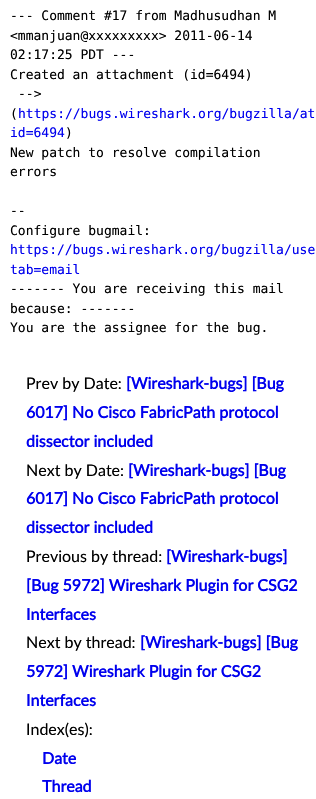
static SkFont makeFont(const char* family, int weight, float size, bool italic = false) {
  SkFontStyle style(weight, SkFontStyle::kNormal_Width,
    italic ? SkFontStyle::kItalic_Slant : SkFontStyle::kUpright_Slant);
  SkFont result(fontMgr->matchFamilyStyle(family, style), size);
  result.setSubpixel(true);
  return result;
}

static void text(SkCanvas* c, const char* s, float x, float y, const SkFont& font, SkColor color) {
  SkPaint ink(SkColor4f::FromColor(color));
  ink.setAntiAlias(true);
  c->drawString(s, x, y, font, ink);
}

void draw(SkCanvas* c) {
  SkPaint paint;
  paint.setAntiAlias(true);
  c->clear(0xffffffff);
  SkFont face1 = makeFont("DejaVu Sans Mono", 400, 13);
  text(c, "--- Comment #17 from Madhusudhan M", 10, 20, face1, 0xff000000);
  text(c, "<mmanjuan@xxxxxxxxx> 2011-06-14", 10, 40, face1, 0xff000000);
  text(c, "02:17:25 PDT ---", 10, 59, face1, 0xff000000);
  text(c, "Created an attachment (id=6494)", 10, 79, face1, 0xff000000);
  text(c, "-->", 18, 98, face1, 0xff000000);
  text(c, "(", 10, 118, face1, 0xff000000);
  text(c, "https://bugs.wireshark.org/bugzilla/at", 18, 118, face1, 0xff0000ee);
  text(c, "id=6494", 10, 137, face1, 0xff0000ee);
  text(c, ")", 65, 137, face1, 0xff000000);
  text(c, "New patch to resolve compilation", 10, 157, face1, 0xff000000);
  text(c, "errors", 10, 176, face1, 0xff000000);
  text(c, "--", 10, 215, face1, 0xff000000);
  text(c, "Configure bugmail:", 10, 235, face1, 0xff000000);
  text(c, "https://bugs.wireshark.org/bugzilla/use", 10, 254, face1, 0xff0000ee);
  text(c, "tab=email", 10, 274, face1, 0xff0000ee);
  text(c, "------- You are receiving this mail", 10, 293, face1, 0xff000000);
  text(c, "because: -------", 10, 313, face1, 0xff000000);
  text(c, "You are the assignee for the bug.", 10, 332, face1, 0xff000000);
  SkFont face2 = makeFont("Lato", 400, 16);
  text(c, "Prev by Date:", 26, 389, face2, 0xff000000);
  SkFont face3 = makeFont("Lato", 700, 16);
  text(c, "[Wireshark-bugs] [Bug", 126, 389, face3, 0xff0000ee);
  text(c, "6017] No Cisco FabricPath protocol", 26, 418, face3, 0xff0000ee);
  text(c, "dissector included", 26, 447, face3, 0xff0000ee);
  text(c, "Next by Date:", 26, 476, face2, 0xff000000);
  text(c, "[Wireshark-bugs] [Bug", 128, 476, face3, 0xff0000ee);
  text(c, "6017] No Cisco FabricPath protocol", 26, 504, face3, 0xff0000ee);
  text(c, "dissector included", 26, 533, face3, 0xff0000ee);
  text(c, "Previous by thread:", 26, 562, face2, 0xff000000);
  text(c, "[Wireshark-bugs]", 166, 562, face3, 0xff0000ee);
  text(c, "[Bug 5972] Wireshark Plugin for CSG2", 26, 591, face3, 0xff0000ee);
  text(c, "Interfaces", 26, 620, face3, 0xff0000ee);
  text(c, "Next by thread:", 26, 648, face2, 0xff000000);
  text(c, "[Wireshark-bugs] [Bug", 140, 648, face3, 0xff0000ee);
  text(c, "5972] Wireshark Plugin for CSG2", 26, 677, face3, 0xff0000ee);
  text(c, "Interfaces", 26, 706, face3, 0xff0000ee);
  text(c, "Index(es):", 26, 735, face2, 0xff000000);
  text(c, "Date", 42, 764, face3, 0xff0000ee);
  text(c, "Thread", 42, 792, face3, 0xff0000ee);
}
